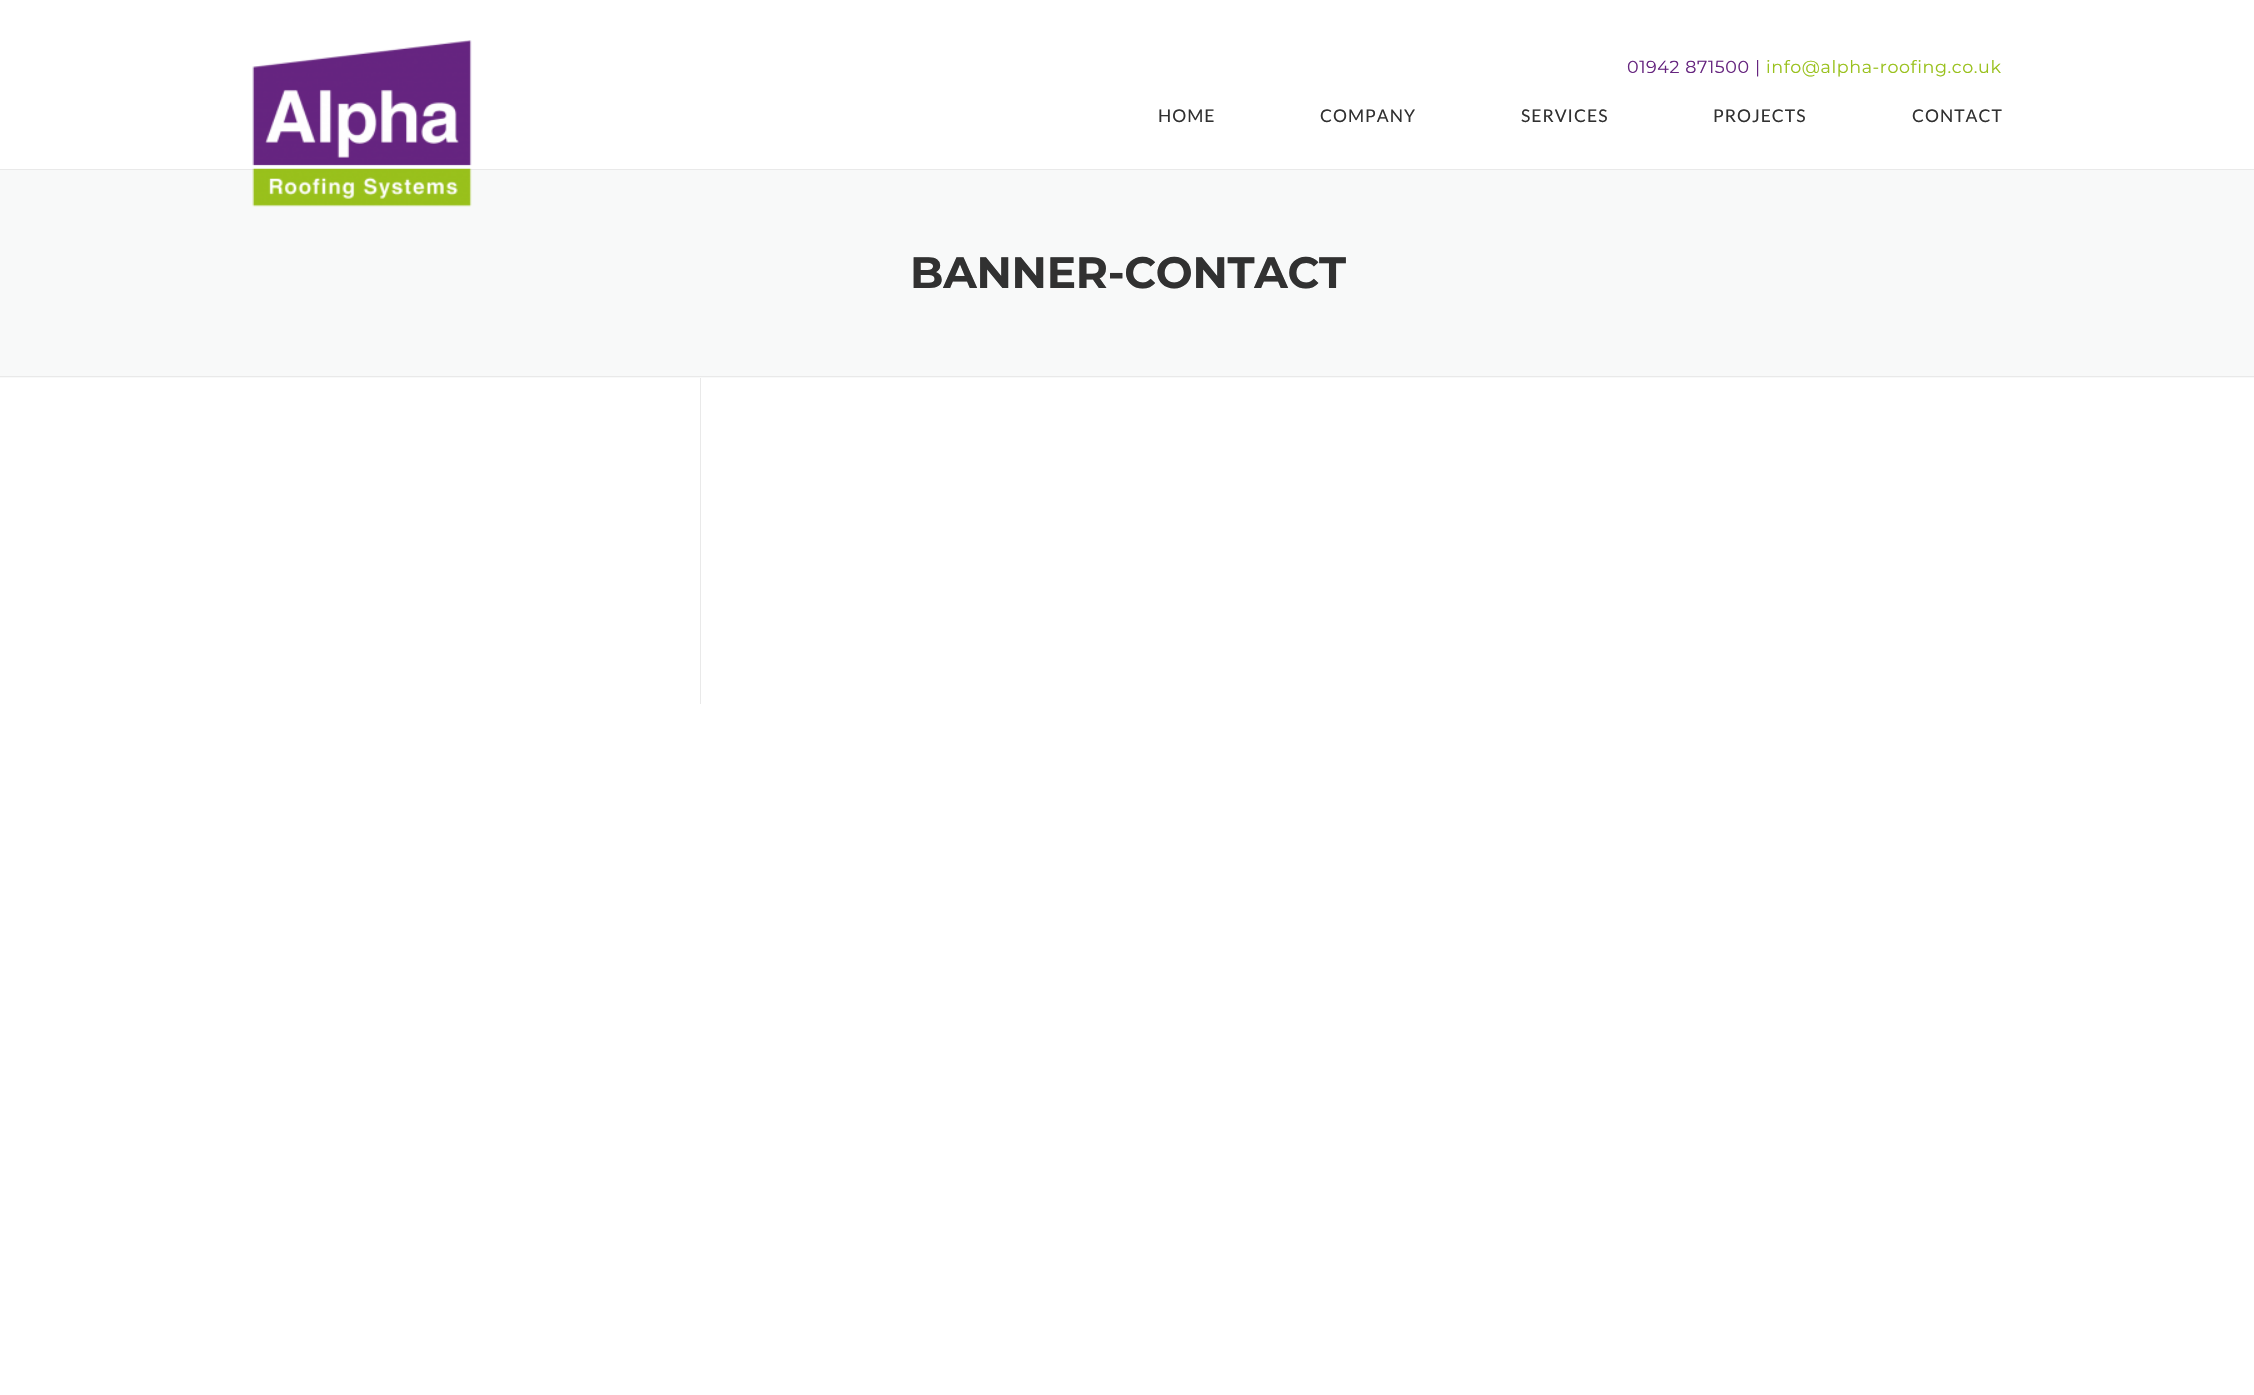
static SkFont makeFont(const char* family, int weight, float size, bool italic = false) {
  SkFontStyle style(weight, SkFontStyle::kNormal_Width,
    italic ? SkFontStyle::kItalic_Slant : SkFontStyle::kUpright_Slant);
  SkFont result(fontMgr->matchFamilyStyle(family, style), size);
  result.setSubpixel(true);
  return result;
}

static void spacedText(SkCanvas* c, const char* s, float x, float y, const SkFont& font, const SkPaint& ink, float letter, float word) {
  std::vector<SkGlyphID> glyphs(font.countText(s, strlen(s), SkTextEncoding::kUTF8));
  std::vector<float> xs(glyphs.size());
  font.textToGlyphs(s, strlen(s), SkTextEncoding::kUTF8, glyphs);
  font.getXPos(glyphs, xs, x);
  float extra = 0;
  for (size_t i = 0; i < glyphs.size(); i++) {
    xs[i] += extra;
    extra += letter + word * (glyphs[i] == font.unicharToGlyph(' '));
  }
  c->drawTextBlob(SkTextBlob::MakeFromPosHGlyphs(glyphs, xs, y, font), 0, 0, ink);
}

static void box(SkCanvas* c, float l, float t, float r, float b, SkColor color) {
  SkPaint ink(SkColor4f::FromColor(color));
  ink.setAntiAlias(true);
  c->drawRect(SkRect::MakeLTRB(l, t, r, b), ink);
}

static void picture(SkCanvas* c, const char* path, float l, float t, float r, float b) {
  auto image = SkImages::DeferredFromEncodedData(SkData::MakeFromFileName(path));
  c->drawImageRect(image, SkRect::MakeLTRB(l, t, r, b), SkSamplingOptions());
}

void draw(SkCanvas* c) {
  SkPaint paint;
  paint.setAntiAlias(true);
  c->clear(0xffffffff);
  box(c, 0, 170, 2254, 378, 0xfff8f9f9);
  box(c, 0, 169, 2254, 170, 0xffe9e9e9);
  picture(c, "img_01.png", 252, 40, 472, 207);
  SkFont face1 = makeFont("Montserrat", 400, 17.5f);
  paint.setColor(0xff66257f);
  spacedText(c, "01942 871500 |", 1627, 73, face1, paint, 0.6f, 0);
  paint.setColor(0xff99c11c);
  spacedText(c, "info@alpha-roofing.co.uk", 1766, 73, face1, paint, 0.6f, 0);
  SkFont face2 = makeFont("Lato", 400, 17.5f);
  paint.setColor(0xff313131);
  spacedText(c, "HOME", 1158, 122, face2, paint, 1, 0);
  spacedText(c, "COMPANY", 1320, 122, face2, paint, 1, 0);
  spacedText(c, "SERVICES", 1521, 122, face2, paint, 1, 0);
  spacedText(c, "PROJECTS", 1713, 122, face2, paint, 1, 0);
  spacedText(c, "CONTACT", 1912, 122, face2, paint, 1, 0);
  box(c, 0, 376, 2254, 377, 0xffe9e9e9);
  SkFont face3 = makeFont("Montserrat", 700, 43.75f);
  spacedText(c, "BANNER-CONTACT", 910, 288, face3, paint, -0.25f, 0);
  box(c, 700, 378, 701, 704, 0xffe9e9e9);
}
